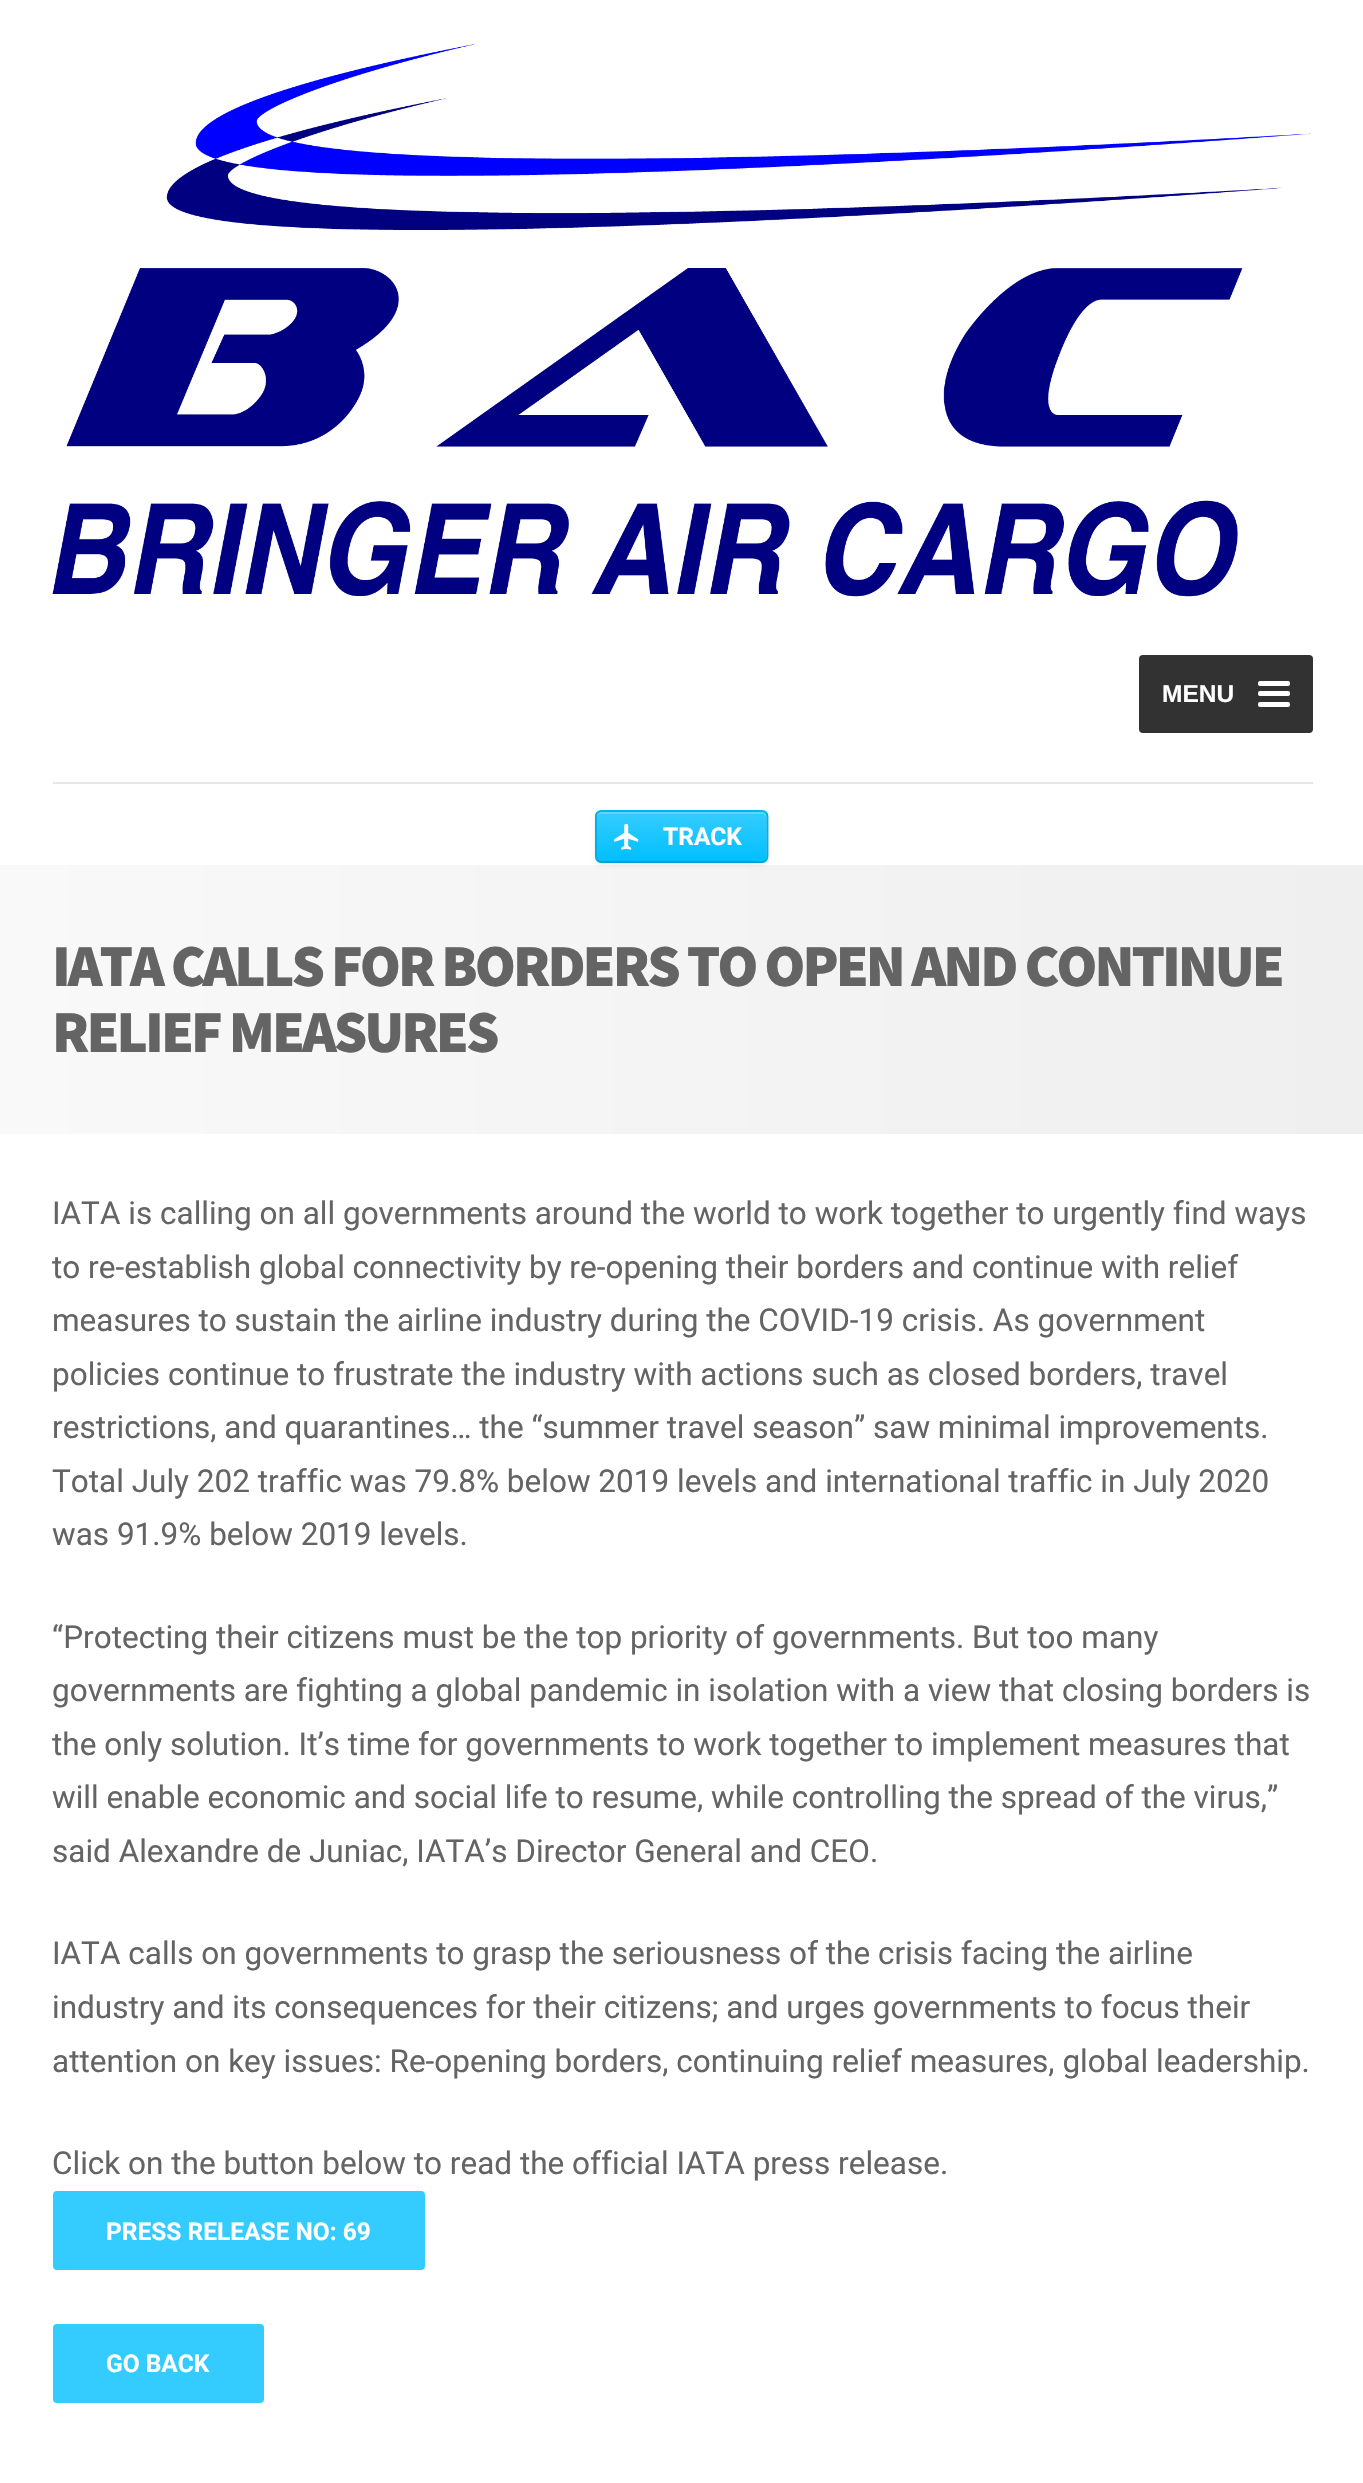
static SkFont makeFont(const char* family, int weight, float size, bool italic = false) {
  SkFontStyle style(weight, SkFontStyle::kNormal_Width,
    italic ? SkFontStyle::kItalic_Slant : SkFontStyle::kUpright_Slant);
  SkFont result(fontMgr->matchFamilyStyle(family, style), size);
  result.setSubpixel(true);
  return result;
}

static void text(SkCanvas* c, const char* s, float x, float y, const SkFont& font, SkColor color) {
  SkPaint ink(SkColor4f::FromColor(color));
  ink.setAntiAlias(true);
  c->drawString(s, x, y, font, ink);
}

static void spacedText(SkCanvas* c, const char* s, float x, float y, const SkFont& font, const SkPaint& ink, float letter, float word) {
  std::vector<SkGlyphID> glyphs(font.countText(s, strlen(s), SkTextEncoding::kUTF8));
  std::vector<float> xs(glyphs.size());
  font.textToGlyphs(s, strlen(s), SkTextEncoding::kUTF8, glyphs);
  font.getXPos(glyphs, xs, x);
  float extra = 0;
  for (size_t i = 0; i < glyphs.size(); i++) {
    xs[i] += extra;
    extra += letter + word * (glyphs[i] == font.unicharToGlyph(' '));
  }
  c->drawTextBlob(SkTextBlob::MakeFromPosHGlyphs(glyphs, xs, y, font), 0, 0, ink);
}

static void box(SkCanvas* c, float l, float t, float r, float b, SkColor color) {
  SkPaint ink(SkColor4f::FromColor(color));
  ink.setAntiAlias(true);
  c->drawRect(SkRect::MakeLTRB(l, t, r, b), ink);
}

static void roundBox(SkCanvas* c, float l, float t, float r, float b, float radius, SkColor color) {
  SkPaint ink(SkColor4f::FromColor(color));
  ink.setAntiAlias(true);
  c->drawRoundRect(SkRect::MakeLTRB(l, t, r, b), radius, radius, ink);
}

static void picture(SkCanvas* c, const char* path, float l, float t, float r, float b) {
  auto image = SkImages::DeferredFromEncodedData(SkData::MakeFromFileName(path));
  c->drawImageRect(image, SkRect::MakeLTRB(l, t, r, b), SkSamplingOptions());
}

void draw(SkCanvas* c) {
  SkPaint paint;
  paint.setAntiAlias(true);
  c->clear(0xffffffff);
  box(c, 53, 782, 1313, 784, 0xffe6e6e6);
  picture(c, "img_01.png", 52, 43, 1311, 597);
  roundBox(c, 1139, 655, 1313, 733, 4, 0xff323232);
  SkFont face1 = makeFont("Liberation Sans", 700, 24.5f);
  text(c, "MENU", 1162, 702, face1, 0xffffffff);
  roundBox(c, 1258, 681, 1290, 686, 2, 0xffffffff);
  roundBox(c, 1258, 691, 1290, 696, 2, 0xffffffff);
  roundBox(c, 1258, 702, 1290, 707, 2, 0xffffffff);
  {
    const SkColor colors[] = {0xfff9f9f9, 0xffefefef};
    const float stops[] = {0, 1};
    const SkPoint ends[] = {{0, 999}, {1363, 999}};
    paint.setShader(SkGradientShader::MakeLinear(ends, colors, stops, 2, SkTileMode::kClamp));
    paint.setAlpha(255);
  }
  c->drawRect(SkRect::MakeLTRB(0, 865, 1363, 1134), paint);
  paint.setShader(nullptr);
  paint.setColor(0x12000000);
  paint.setMaskFilter(SkMaskFilter::MakeBlur(kNormal_SkBlurStyle, 2));
  c->drawRoundRect(SkRect::MakeLTRB(595, 812, 768, 865), 7, 7, paint);
  paint.setMaskFilter(nullptr);
  c->save();
  c->clipPath(SkPathBuilder().moveTo(602, 810).lineTo(761, 810).cubicTo(765, 810, 768, 813, 768, 817).lineTo(768, 856).cubicTo(768, 860, 765, 863, 761, 863).lineTo(602, 863).cubicTo(598, 863, 595, 860, 595, 856).lineTo(595, 817).cubicTo(595, 813, 598, 810, 602, 810).close().detach(), true);
  {
    const SkColor colors[] = {0xff01bfff, 0xff34ccff};
    const float stops[] = {0, 1};
    const SkPoint ends[] = {{597, 861}, {597, 812}};
    paint.setShader(SkGradientShader::MakeLinear(ends, colors, stops, 2, SkTileMode::kClamp));
    paint.setAlpha(255);
  }
  c->drawRect(SkRect::MakeLTRB(595, 812, 768, 861), paint);
  c->restore();
  paint.setShader(nullptr);
  paint.setColor(0x33ffffff);
  c->drawPath(SkPathBuilder().moveTo(601, 814).lineTo(762, 814).cubicTo(765, 814, 766, 816, 766, 818).lineTo(766, 860).cubicTo(767, 859, 767, 858, 767, 857).lineTo(767, 816).cubicTo(767, 814, 765, 812, 763, 812).lineTo(601, 812).cubicTo(599, 812, 597, 814, 597, 816).lineTo(597, 818).cubicTo(597, 816, 599, 814, 601, 814).close().detach(), paint);
  paint.setStyle(SkPaint::kStroke_Style);
  paint.setStrokeWidth(1.8f);
  paint.setColor(0xff00b4f1);
  c->drawPath(SkPathBuilder().moveTo(597.5f, 812.5f).cubicTo(598.5f, 811.5f, 599.5f, 811, 601, 811).lineTo(762, 811).cubicTo(763.5f, 811, 765, 811.5f, 766, 812.5f).detach(), paint);
  paint.setColor(0xff00ade6);
  c->drawPath(SkPathBuilder().moveTo(766, 812.5f).cubicTo(767, 813.5f, 767.5f, 815, 767.5f, 816.5f).lineTo(767.5f, 856.5f).cubicTo(767.5f, 858, 767, 859.5f, 766, 860.5f).detach(), paint);
  paint.setColor(0xff00a1d7);
  c->drawPath(SkPathBuilder().moveTo(766, 860.5f).cubicTo(765, 861.5f, 763.5f, 862, 762, 862).lineTo(601, 862).cubicTo(599.5f, 862, 598.5f, 861.5f, 597.5f, 860.5f).detach(), paint);
  paint.setColor(0xff00ade6);
  c->drawPath(SkPathBuilder().moveTo(597.5f, 860.5f).cubicTo(596.5f, 859.5f, 596, 858, 596, 856.5f).lineTo(596, 816.5f).cubicTo(596, 815, 596.5f, 813.5f, 597.5f, 812.5f).detach(), paint);
  picture(c, "img_02.png", 614, 823, 639, 850);
  SkFont face2 = makeFont("Roboto", 700, 24.5f);
  text(c, "TRACK", 663, 845, face2, 0xffffffff);
  SkFont face3 = makeFont("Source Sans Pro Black", 900, 59.5f);
  paint.setStyle(SkPaint::kFill_Style);
  paint.setColor(0xff646464);
  spacedText(c, "IATA CALLS FOR BORDERS TO OPEN AND CONTINUE", 52, 986, face3, paint, -3, 0);
  spacedText(c, "RELIEF MEASURES", 52, 1052, face3, paint, -3, 0);
  SkFont face4 = makeFont("Roboto", 400, 31.5f);
  text(c, "IATA is calling on all governments around the world to work together to urgently find ways", 52, 1224, face4, 0xff646464);
  text(c, "to re-establish global connectivity by re-opening their borders and continue with relief", 52, 1278, face4, 0xff646464);
  text(c, "measures to sustain the airline industry during the COVID-19 crisis. As government", 52, 1331, face4, 0xff646464);
  text(c, "policies continue to frustrate the industry with actions such as closed borders, travel", 52, 1385, face4, 0xff646464);
  text(c, "restrictions, and quarantines… the “summer travel season” saw minimal improvements.", 52, 1438, face4, 0xff646464);
  text(c, "Total July 202 traffic was 79.8% below 2019 levels and international traffic in July 2020", 52, 1492, face4, 0xff646464);
  text(c, "was 91.9% below 2019 levels.", 52, 1545, face4, 0xff646464);
  text(c, "“Protecting their citizens must be the top priority of governments. But too many", 52, 1648, face4, 0xff646464);
  text(c, "governments are fighting a global pandemic in isolation with a view that closing borders is", 52, 1701, face4, 0xff646464);
  text(c, "the only solution. It’s time for governments to work together to implement measures that", 52, 1755, face4, 0xff646464);
  text(c, "will enable economic and social life to resume, while controlling the spread of the virus,”", 52, 1808, face4, 0xff646464);
  text(c, "said Alexandre de Juniac, IATA’s Director General and CEO.", 52, 1862, face4, 0xff646464);
  text(c, "IATA calls on governments to grasp the seriousness of the crisis facing the airline", 52, 1964, face4, 0xff646464);
  text(c, "industry and its consequences for their citizens; and urges governments to focus their", 52, 2018, face4, 0xff646464);
  text(c, "attention on key issues: Re-opening borders, continuing relief measures, global leadership.", 52, 2072, face4, 0xff646464);
  text(c, "Click on the button below to read the official IATA press release.", 52, 2174, face4, 0xff646464);
  paint.setColor(0xff34ccff);
  c->drawRoundRect(SkRect::MakeLTRB(54, 2192, 424, 2269), 3, 3, paint);
  paint.setStyle(SkPaint::kStroke_Style);
  paint.setStrokeWidth(2);
  c->drawRoundRect(SkRect::MakeLTRB(54, 2192, 424, 2269), 3, 3, paint);
  text(c, "PRESS RELEASE NO: 69", 106, 2240, face2, 0xffffffff);
  paint.setStyle(SkPaint::kFill_Style);
  c->drawRoundRect(SkRect::MakeLTRB(54, 2325, 263, 2402), 3, 3, paint);
  paint.setStyle(SkPaint::kStroke_Style);
  c->drawRoundRect(SkRect::MakeLTRB(54, 2325, 263, 2402), 3, 3, paint);
  text(c, "GO BACK", 106, 2372, face2, 0xffffffff);
}
